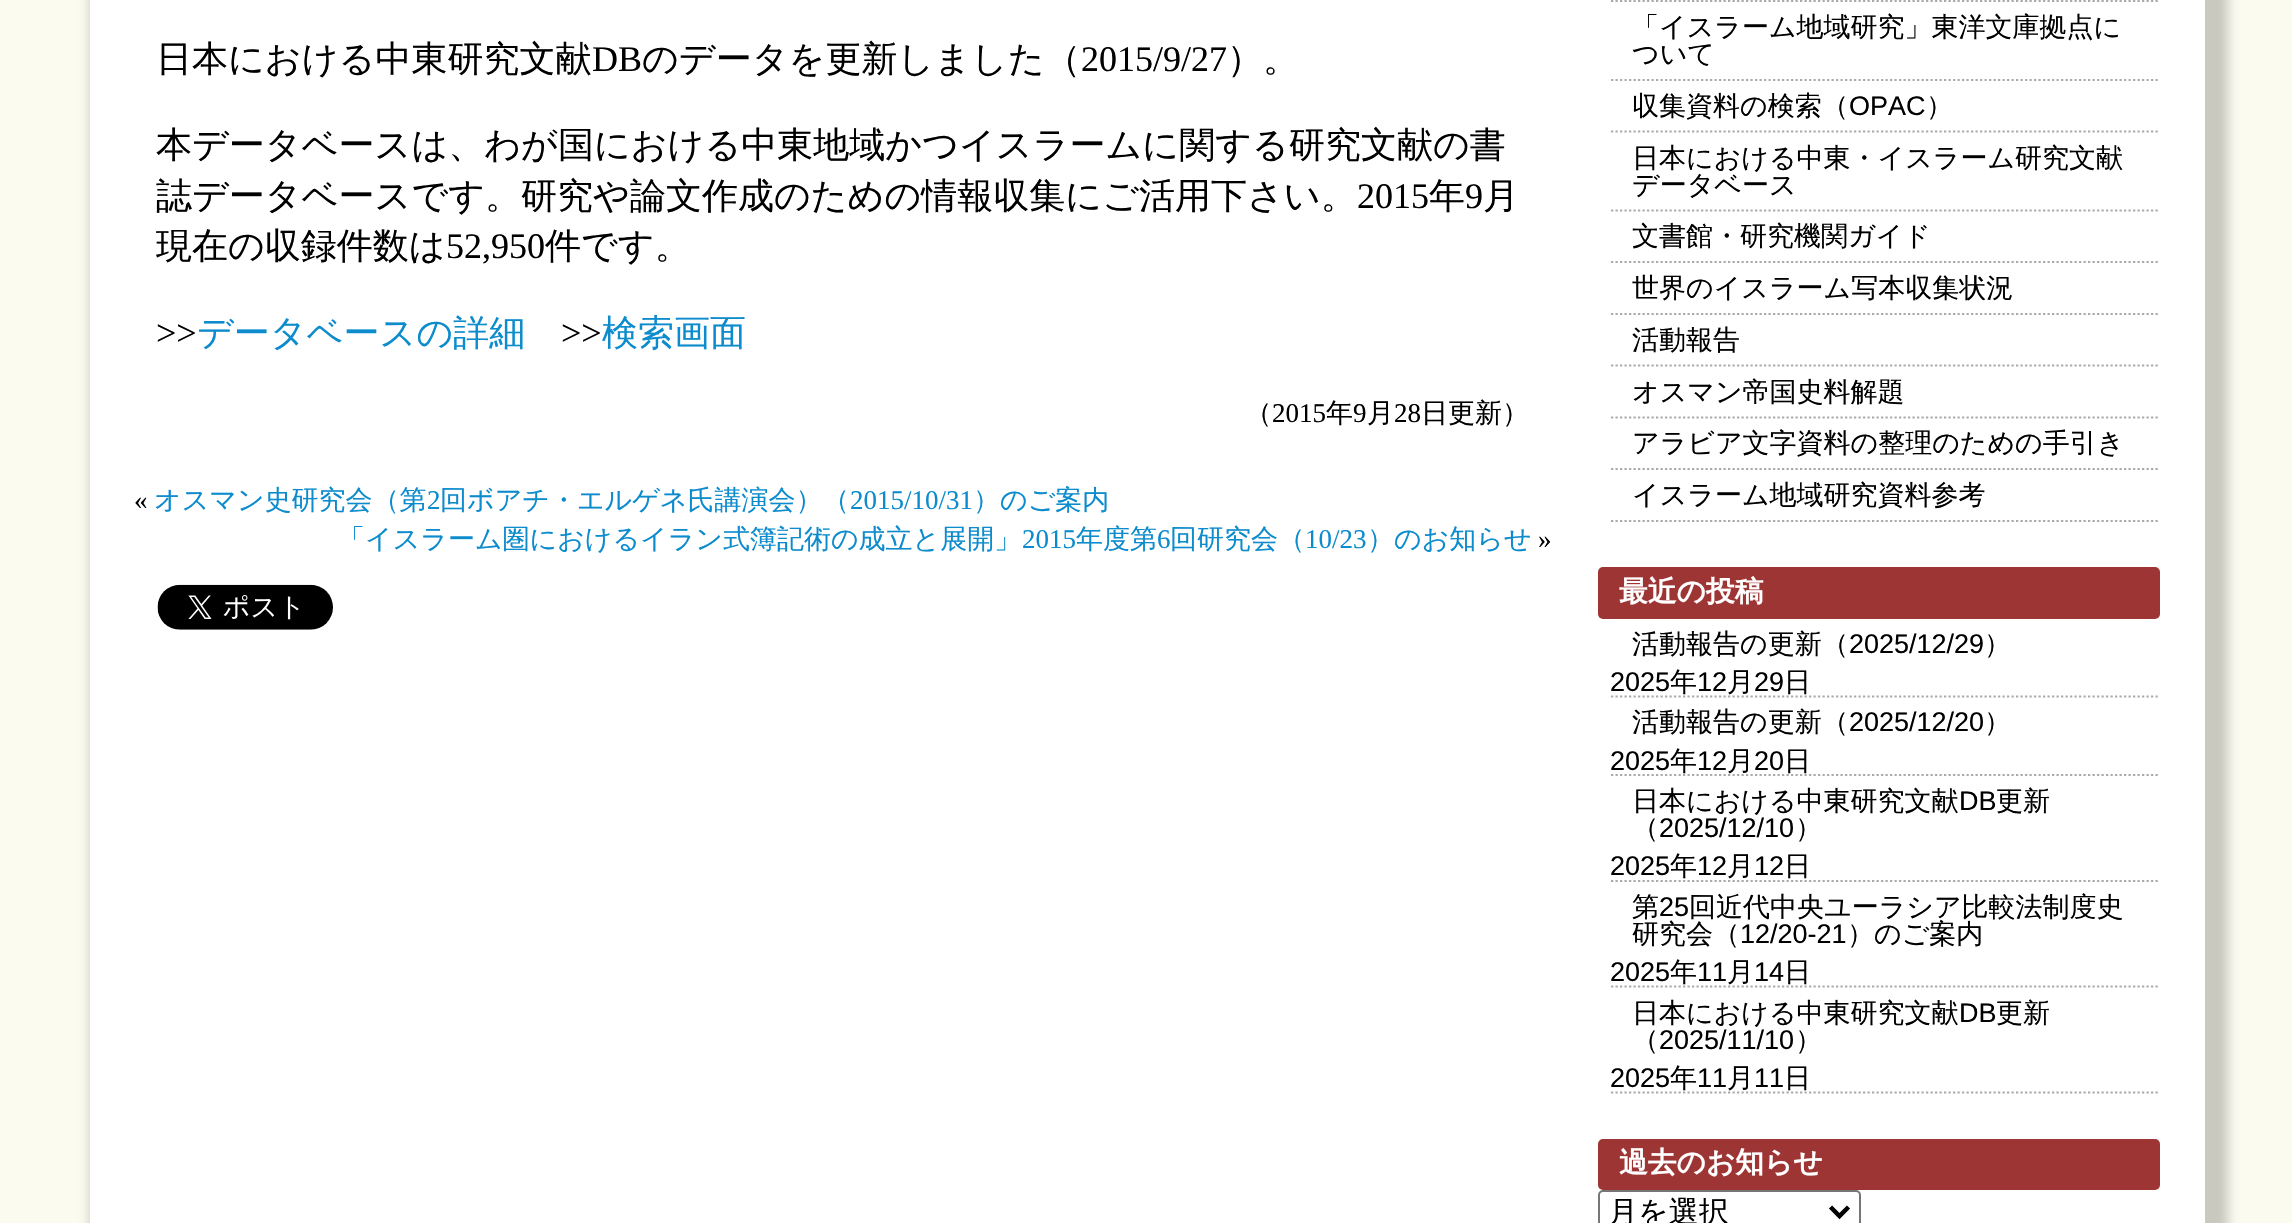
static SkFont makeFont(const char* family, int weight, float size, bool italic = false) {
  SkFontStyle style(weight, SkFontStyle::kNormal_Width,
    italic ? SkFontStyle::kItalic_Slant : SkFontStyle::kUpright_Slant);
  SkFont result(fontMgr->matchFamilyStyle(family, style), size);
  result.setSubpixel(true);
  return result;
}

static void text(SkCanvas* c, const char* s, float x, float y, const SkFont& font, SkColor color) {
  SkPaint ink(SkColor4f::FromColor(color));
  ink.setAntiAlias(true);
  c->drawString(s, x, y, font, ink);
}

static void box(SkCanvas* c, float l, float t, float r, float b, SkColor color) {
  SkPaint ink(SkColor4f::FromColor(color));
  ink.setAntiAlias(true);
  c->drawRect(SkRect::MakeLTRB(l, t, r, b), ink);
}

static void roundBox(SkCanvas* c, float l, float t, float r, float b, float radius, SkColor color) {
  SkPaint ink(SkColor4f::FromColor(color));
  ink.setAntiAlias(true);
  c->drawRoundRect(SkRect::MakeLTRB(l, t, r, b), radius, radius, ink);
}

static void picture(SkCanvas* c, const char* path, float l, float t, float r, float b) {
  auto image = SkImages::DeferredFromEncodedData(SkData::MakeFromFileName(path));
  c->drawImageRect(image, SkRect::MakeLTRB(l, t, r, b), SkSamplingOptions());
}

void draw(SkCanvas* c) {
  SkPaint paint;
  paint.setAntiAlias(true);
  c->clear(0xfffbfbf0);
  paint.setColor(0x33000000);
  paint.setMaskFilter(SkMaskFilter::MakeBlur(kNormal_SkBlurStyle, 5.5f));
  c->drawRoundRect(SkRect::MakeLTRB(90, -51, 2228, 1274), 34, 34, paint);
  paint.setMaskFilter(nullptr);
  box(c, 90, 0, 2205, 1223, 0xffffffff);
  SkFont face1 = makeFont("WenQuanYi Zen Hei", 500, 36);
  text(c, "日本における中東研究文献", 156, 71, face1, 0xff000000);
  SkFont face2 = makeFont("Liberation Serif", 400, 36);
  text(c, "DB", 592, 71, face2, 0xff000000);
  text(c, "のデータを更新しました（", 642, 71, face1, 0xff000000);
  text(c, "2015/9/27", 1081, 71, face2, 0xff000000);
  text(c, "）。", 1227, 71, face1, 0xff000000);
  text(c, "本データベースは、わが国における中東地域かつイスラームに関する研究文献の書", 156, 157, face1, 0xff000000);
  text(c, "誌データベースです。研究や論文作成のための情報収集にご活用下さい。", 156, 208, face1, 0xff000000);
  text(c, "2015", 1357, 208, face2, 0xff000000);
  text(c, "年", 1429, 208, face1, 0xff000000);
  text(c, "9", 1465, 208, face2, 0xff000000);
  text(c, "月", 1483, 208, face1, 0xff000000);
  text(c, "現在の収録件数は", 156, 258, face1, 0xff000000);
  text(c, "52,950", 446, 258, face2, 0xff000000);
  text(c, "件です。", 545, 258, face1, 0xff000000);
  text(c, ">>", 156, 345, face2, 0xff000000);
  text(c, "データベースの詳細", 197, 345, face1, 0xff0c8bcd);
  text(c, ">>", 561, 345, face2, 0xff000000);
  text(c, "検索画面", 602, 345, face1, 0xff0c8bcd);
  SkFont face3 = makeFont("WenQuanYi Zen Hei", 500, 27);
  text(c, "（", 1245, 422, face3, 0xff000000);
  SkFont face4 = makeFont("Liberation Serif", 400, 27);
  text(c, "2015", 1272, 422, face4, 0xff000000);
  text(c, "年", 1326, 422, face3, 0xff000000);
  text(c, "9", 1353, 422, face4, 0xff000000);
  text(c, "月", 1367, 422, face3, 0xff000000);
  text(c, "28", 1394, 422, face4, 0xff000000);
  text(c, "日更新）", 1421, 422, face3, 0xff000000);
  text(c, "«", 134, 509, face4, 0xff000000);
  text(c, "オスマン史研究会（第", 154, 509, face3, 0xff0c8bcd);
  text(c, "2", 427, 509, face4, 0xff0c8bcd);
  text(c, "回ボアチ・エルゲネ氏講演会）（", 440, 509, face3, 0xff0c8bcd);
  text(c, "2015/10/31", 850, 509, face4, 0xff0c8bcd);
  text(c, "）のご案内", 973, 509, face3, 0xff0c8bcd);
  text(c, "「イスラーム圏におけるイラン式簿記術の成立と展開」", 338, 548, face3, 0xff0c8bcd);
  text(c, "2015", 1022, 548, face4, 0xff0c8bcd);
  text(c, "年度第", 1076, 548, face3, 0xff0c8bcd);
  text(c, "6", 1157, 548, face4, 0xff0c8bcd);
  text(c, "回研究会（", 1170, 548, face3, 0xff0c8bcd);
  text(c, "10/23", 1305, 548, face4, 0xff0c8bcd);
  text(c, "）のお知らせ", 1367, 548, face3, 0xff0c8bcd);
  text(c, "»", 1538, 548, face4, 0xff000000);
  picture(c, "img_01.png", 157, 584, 333, 630);
  paint.setStyle(SkPaint::kStroke_Style);
  paint.setStrokeWidth(2.2f);
  paint.setColor(0xffaaaaaa);
  paint.setPathEffect(SkDashPathEffect::Make({{2.25f, 2.25f}}, 0));
  c->drawPath(SkPathBuilder().moveTo(1611, 1).lineTo(2160, 1).detach(), paint);
  paint.setPathEffect(nullptr);
  paint.setPathEffect(SkDashPathEffect::Make({{2.25f, 2.25f}}, 0));
  c->drawPath(SkPathBuilder().moveTo(1611, 80).lineTo(2160, 80).detach(), paint);
  paint.setPathEffect(nullptr);
  text(c, "「イスラーム地域研究」東洋文庫拠点に", 1632, 36, face3, 0xff000000);
  text(c, "ついて", 1632, 63, face3, 0xff000000);
  paint.setPathEffect(SkDashPathEffect::Make({{2.25f, 2.25f}}, 0));
  c->drawPath(SkPathBuilder().moveTo(1611, 131.5f).lineTo(2160, 131.5f).detach(), paint);
  paint.setPathEffect(nullptr);
  text(c, "収集資料の検索（", 1632, 115, face3, 0xff000000);
  SkFont face5 = makeFont("Liberation Sans", 400, 27);
  text(c, "OPAC", 1849, 115, face5, 0xff000000);
  text(c, "）", 1926, 115, face3, 0xff000000);
  paint.setPathEffect(SkDashPathEffect::Make({{2.25f, 2.25f}}, 0));
  c->drawPath(SkPathBuilder().moveTo(1611, 210.5f).lineTo(2160, 210.5f).detach(), paint);
  paint.setPathEffect(nullptr);
  text(c, "日本における中東・イスラーム研究文献", 1632, 167, face3, 0xff000000);
  text(c, "データベース", 1632, 194, face3, 0xff000000);
  paint.setPathEffect(SkDashPathEffect::Make({{2.25f, 2.25f}}, 0));
  c->drawPath(SkPathBuilder().moveTo(1611, 262).lineTo(2160, 262).detach(), paint);
  paint.setPathEffect(nullptr);
  text(c, "文書館・研究機関ガイド", 1632, 245, face3, 0xff000000);
  paint.setPathEffect(SkDashPathEffect::Make({{2.25f, 2.25f}}, 0));
  c->drawPath(SkPathBuilder().moveTo(1611, 314).lineTo(2160, 314).detach(), paint);
  paint.setPathEffect(nullptr);
  text(c, "世界のイスラーム写本収集状況", 1632, 297, face3, 0xff000000);
  paint.setPathEffect(SkDashPathEffect::Make({{2.25f, 2.25f}}, 0));
  c->drawPath(SkPathBuilder().moveTo(1611, 365.5f).lineTo(2160, 365.5f).detach(), paint);
  paint.setPathEffect(nullptr);
  text(c, "活動報告", 1632, 349, face3, 0xff000000);
  paint.setPathEffect(SkDashPathEffect::Make({{2.25f, 2.25f}}, 0));
  c->drawPath(SkPathBuilder().moveTo(1611, 417.5f).lineTo(2160, 417.5f).detach(), paint);
  paint.setPathEffect(nullptr);
  text(c, "オスマン帝国史料解題", 1632, 401, face3, 0xff000000);
  paint.setPathEffect(SkDashPathEffect::Make({{2.25f, 2.25f}}, 0));
  c->drawPath(SkPathBuilder().moveTo(1611, 469).lineTo(2160, 469).detach(), paint);
  paint.setPathEffect(nullptr);
  text(c, "アラビア文字資料の整理のための手引き", 1632, 452, face3, 0xff000000);
  paint.setPathEffect(SkDashPathEffect::Make({{2.25f, 2.25f}}, 0));
  c->drawPath(SkPathBuilder().moveTo(1611, 521).lineTo(2160, 521).detach(), paint);
  paint.setPathEffect(nullptr);
  text(c, "イスラーム地域研究資料参考", 1632, 504, face3, 0xff000000);
  roundBox(c, 1598, 567, 2160, 619, 5, 0xff9e3535);
  SkFont face6 = makeFont("WenQuanYi Zen Hei", 700, 28.75f);
  text(c, "最近の投稿", 1619, 601, face6, 0xffffffff);
  paint.setPathEffect(SkDashPathEffect::Make({{2.25f, 2.25f}}, 0));
  c->drawPath(SkPathBuilder().moveTo(1611, 696.5f).lineTo(2160, 696.5f).detach(), paint);
  paint.setPathEffect(nullptr);
  text(c, "活動報告の更新（", 1632, 653, face3, 0xff000000);
  text(c, "2025/12/29", 1849, 653, face5, 0xff000000);
  text(c, "）", 1984, 653, face3, 0xff000000);
  text(c, "2025", 1610, 691, face5, 0xff000000);
  text(c, "年", 1670, 691, face3, 0xff000000);
  text(c, "12", 1697, 691, face5, 0xff000000);
  text(c, "月", 1727, 691, face3, 0xff000000);
  text(c, "29", 1754, 691, face5, 0xff000000);
  text(c, "日", 1784, 691, face3, 0xff000000);
  paint.setPathEffect(SkDashPathEffect::Make({{2.25f, 2.25f}}, 0));
  c->drawPath(SkPathBuilder().moveTo(1611, 775).lineTo(2160, 775).detach(), paint);
  paint.setPathEffect(nullptr);
  text(c, "活動報告の更新（", 1632, 731, face3, 0xff000000);
  text(c, "2025/12/20", 1849, 731, face5, 0xff000000);
  text(c, "）", 1984, 731, face3, 0xff000000);
  text(c, "2025", 1610, 770, face5, 0xff000000);
  text(c, "年", 1670, 770, face3, 0xff000000);
  text(c, "12", 1697, 770, face5, 0xff000000);
  text(c, "月", 1727, 770, face3, 0xff000000);
  text(c, "20", 1754, 770, face5, 0xff000000);
  text(c, "日", 1784, 770, face3, 0xff000000);
  paint.setPathEffect(SkDashPathEffect::Make({{2.25f, 2.25f}}, 0));
  c->drawPath(SkPathBuilder().moveTo(1611, 881).lineTo(2160, 881).detach(), paint);
  paint.setPathEffect(nullptr);
  text(c, "日本における中東研究文献", 1632, 810, face3, 0xff000000);
  text(c, "DB", 1959, 810, face5, 0xff000000);
  text(c, "更新", 1996, 810, face3, 0xff000000);
  text(c, "（", 1632, 837, face3, 0xff000000);
  text(c, "2025/12/10", 1659, 837, face5, 0xff000000);
  text(c, "）", 1795, 837, face3, 0xff000000);
  text(c, "2025", 1610, 875, face5, 0xff000000);
  text(c, "年", 1670, 875, face3, 0xff000000);
  text(c, "12", 1697, 875, face5, 0xff000000);
  text(c, "月", 1727, 875, face3, 0xff000000);
  text(c, "12", 1754, 875, face5, 0xff000000);
  text(c, "日", 1784, 875, face3, 0xff000000);
  paint.setPathEffect(SkDashPathEffect::Make({{2.25f, 2.25f}}, 0));
  c->drawPath(SkPathBuilder().moveTo(1611, 986.5f).lineTo(2160, 986.5f).detach(), paint);
  paint.setPathEffect(nullptr);
  text(c, "第", 1632, 916, face3, 0xff000000);
  text(c, "25", 1659, 916, face5, 0xff000000);
  text(c, "回近代中央ユーラシア比較法制度史", 1689, 916, face3, 0xff000000);
  text(c, "研究会（", 1632, 943, face3, 0xff000000);
  text(c, "12/20-21", 1740, 943, face5, 0xff000000);
  text(c, "）のご案内", 1847, 943, face3, 0xff000000);
  text(c, "2025", 1610, 981, face5, 0xff000000);
  text(c, "年", 1670, 981, face3, 0xff000000);
  text(c, "11", 1697, 981, face5, 0xff000000);
  text(c, "月", 1727, 981, face3, 0xff000000);
  text(c, "14", 1754, 981, face5, 0xff000000);
  text(c, "日", 1784, 981, face3, 0xff000000);
  paint.setPathEffect(SkDashPathEffect::Make({{2.25f, 2.25f}}, 0));
  c->drawPath(SkPathBuilder().moveTo(1611, 1092.5f).lineTo(2160, 1092.5f).detach(), paint);
  paint.setPathEffect(nullptr);
  text(c, "日本における中東研究文献", 1632, 1022, face3, 0xff000000);
  text(c, "DB", 1959, 1022, face5, 0xff000000);
  text(c, "更新", 1996, 1022, face3, 0xff000000);
  text(c, "（", 1632, 1049, face3, 0xff000000);
  text(c, "2025/11/10", 1659, 1049, face5, 0xff000000);
  text(c, "）", 1795, 1049, face3, 0xff000000);
  text(c, "2025", 1610, 1087, face5, 0xff000000);
  text(c, "年", 1670, 1087, face3, 0xff000000);
  text(c, "11", 1697, 1087, face5, 0xff000000);
  text(c, "月", 1727, 1087, face3, 0xff000000);
  text(c, "11", 1754, 1087, face5, 0xff000000);
  text(c, "日", 1784, 1087, face3, 0xff000000);
  roundBox(c, 1598, 1139, 2160, 1190, 5, 0xff9e3535);
  text(c, "過去のお知らせ", 1619, 1172, face6, 0xffffffff);
  paint.setStrokeWidth(2);
  paint.setColor(0xff767676);
  c->drawRoundRect(SkRect::MakeLTRB(1599, 1191, 1860, 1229), 4, 4, paint);
  paint.setStrokeWidth(4.5f);
  paint.setColor(0xff000000);
  c->drawPath(SkPathBuilder().moveTo(1830.5f, 1207).lineTo(1839.5f, 1216).lineTo(1848.5f, 1207).detach(), paint);
  SkFont face7 = makeFont("WenQuanYi Zen Hei", 500, 30);
  text(c, "月を選択", 1608, 1222, face7, 0xff000000);
}
